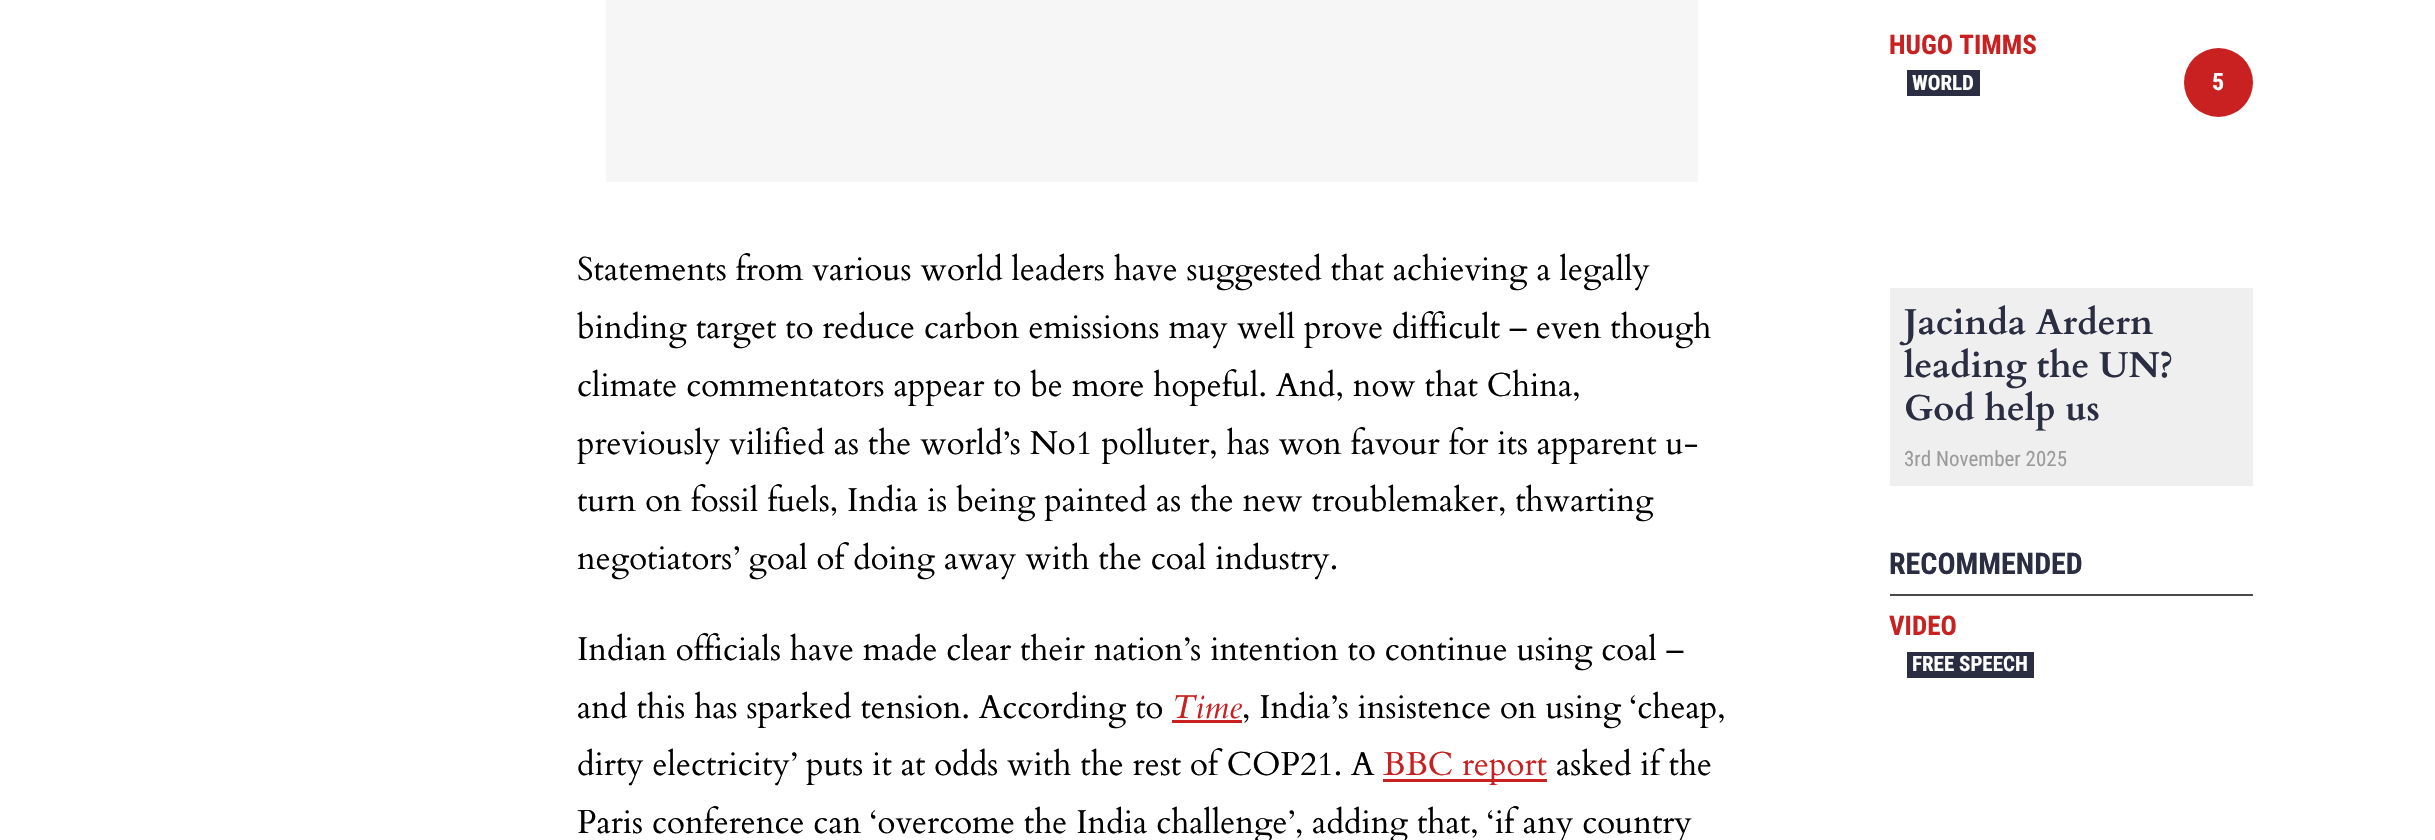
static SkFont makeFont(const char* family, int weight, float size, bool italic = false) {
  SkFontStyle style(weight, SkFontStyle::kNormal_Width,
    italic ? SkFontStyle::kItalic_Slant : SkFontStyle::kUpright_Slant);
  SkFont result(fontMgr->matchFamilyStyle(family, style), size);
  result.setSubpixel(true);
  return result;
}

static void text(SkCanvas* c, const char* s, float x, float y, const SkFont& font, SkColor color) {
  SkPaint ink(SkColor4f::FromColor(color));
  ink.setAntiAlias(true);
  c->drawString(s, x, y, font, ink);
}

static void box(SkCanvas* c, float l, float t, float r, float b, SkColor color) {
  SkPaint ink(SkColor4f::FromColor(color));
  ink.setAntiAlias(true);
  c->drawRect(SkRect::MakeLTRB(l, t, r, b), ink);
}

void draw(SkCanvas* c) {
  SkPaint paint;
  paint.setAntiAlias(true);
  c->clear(0xffffffff);
  box(c, 606, 0, 1698, 182, 0xfff6f6f6);
  SkFont face1 = makeFont("Cardo", 400, 33);
  text(c, "Statements from various world leaders have suggested that achieving a legally", 577, 280, face1, 0xff000000);
  text(c, "binding target to reduce carbon emissions may well prove difficult – even though", 577, 338, face1, 0xff000000);
  text(c, "climate commentators appear to be more hopeful. And, now that China,", 577, 396, face1, 0xff000000);
  text(c, "previously vilified as the world’s No1 polluter, has won favour for its apparent u-", 577, 454, face1, 0xff000000);
  text(c, "turn on fossil fuels, India is being painted as the new troublemaker, thwarting", 577, 511, face1, 0xff000000);
  text(c, "negotiators’ goal of doing away with the coal industry.", 577, 569, face1, 0xff000000);
  text(c, "Indian officials have made clear their nation’s intention to continue using coal –", 577, 660, face1, 0xff000000);
  text(c, "and this has sparked tension. According to", 577, 718, face1, 0xff000000);
  SkFont face2 = makeFont("Cardo", 400, 33, true);
  text(c, "Time", 1172, 718, face2, 0xffc92121);
  box(c, 1172, 720, 1242, 723, 0xffc92121);
  text(c, ", India’s insistence on using ‘cheap,", 1242, 718, face1, 0xff000000);
  text(c, "dirty electricity’ puts it at odds with the rest of COP21. A", 577, 775, face1, 0xff000000);
  box(c, 1383, 779, 1547, 782, 0xffc92121);
  text(c, "BBC report", 1383, 775, face1, 0xffc92121);
  text(c, "asked if the", 1556, 775, face1, 0xff000000);
  text(c, "Paris conference can ‘overcome the India challenge’, adding that, ‘if any country", 577, 833, face1, 0xff000000);
  SkFont face3 = makeFont("Roboto Condensed", 700, 27);
  text(c, "HUGO TIMMS", 1889, 54, face3, 0xffc92121);
  box(c, 1907, 70, 1980, 96, 0xff2b2e42);
  SkFont face4 = makeFont("Roboto Condensed", 700, 21);
  text(c, "WORLD", 1912, 90, face4, 0xffffffff);
  paint.setColor(0xffc92121);
  c->drawCircle(2218.5f, 82.5f, 34.5f, paint);
  SkFont face5 = makeFont("Roboto Condensed", 700, 24);
  text(c, "5", 2212, 90, face5, 0xffffffff);
  box(c, 1890, 288, 2253, 486, 0xffefefef);
  SkFont face6 = makeFont("Cardo", 700, 36);
  text(c, "Jacinda Ardern", 1904, 334, face6, 0xff2b2e42);
  text(c, "leading the UN?", 1904, 377, face6, 0xff2b2e42);
  text(c, "God help us", 1904, 420, face6, 0xff2b2e42);
  SkFont face7 = makeFont("Roboto Condensed", 400, 21);
  text(c, "3rd November 2025", 1904, 466, face7, 0xff9b9b9b);
  box(c, 1890, 594, 2253, 596, 0xff4a4a4a);
  SkFont face8 = makeFont("Roboto Condensed", 700, 30);
  text(c, "RECOMMENDED", 1889, 574, face8, 0xff2b2e42);
  text(c, "VIDEO", 1889, 635, face3, 0xffc92121);
  box(c, 1907, 652, 2034, 678, 0xff2b2e42);
  text(c, "FREE SPEECH", 1912, 671, face4, 0xffffffff);
}
